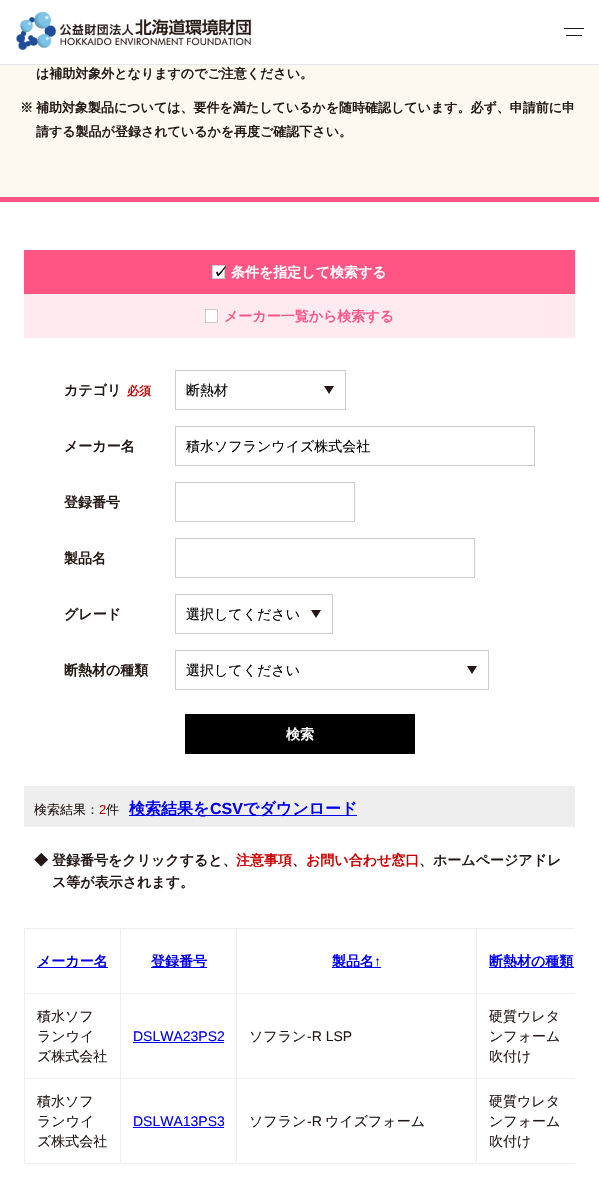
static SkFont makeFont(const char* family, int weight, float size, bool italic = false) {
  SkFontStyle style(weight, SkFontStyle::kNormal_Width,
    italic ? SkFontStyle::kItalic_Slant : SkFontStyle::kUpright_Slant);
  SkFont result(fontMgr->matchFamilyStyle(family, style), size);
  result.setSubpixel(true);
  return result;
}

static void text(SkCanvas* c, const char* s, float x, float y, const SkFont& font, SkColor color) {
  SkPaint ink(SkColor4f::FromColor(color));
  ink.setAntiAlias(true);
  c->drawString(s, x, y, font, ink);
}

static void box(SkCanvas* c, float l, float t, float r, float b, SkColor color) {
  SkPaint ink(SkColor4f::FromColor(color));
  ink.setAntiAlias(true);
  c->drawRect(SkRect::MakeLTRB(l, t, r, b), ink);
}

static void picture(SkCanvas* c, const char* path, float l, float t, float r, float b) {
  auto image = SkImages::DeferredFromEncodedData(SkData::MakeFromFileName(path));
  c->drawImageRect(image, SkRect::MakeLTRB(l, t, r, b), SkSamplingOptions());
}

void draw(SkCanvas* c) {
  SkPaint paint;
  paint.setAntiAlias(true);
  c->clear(0xfffdf9f1);
  box(c, 0, 0, 599, 64, 0xffffffff);
  box(c, 0, 64, 599, 65, 0xffe6e6e6);
  picture(c, "img_01.png", 16, 11, 252, 50);
  box(c, 564, 28, 584, 29, 0xff231815);
  box(c, 566, 35, 582, 36, 0xff231815);
  SkFont face1 = makeFont("WenQuanYi Zen Hei", 700, 13);
  text(c, "は補助対象外となりますのでご注意ください。", 36, 78, face1, 0xff231815);
  text(c, "※", 20, 112, face1, 0xff231815);
  text(c, "補助対象製品については、要件を満たしているかを随時確認しています。必ず、申請前に申", 36, 112, face1, 0xff231815);
  text(c, "請する製品が登録されているかを再度ご確認下さい。", 36, 136, face1, 0xff231815);
  box(c, 0, 202, 599, 1189, 0xffffffff);
  box(c, 0, 197, 599, 202, 0xffff5585);
  box(c, 24, 250, 575, 294, 0xffff5585);
  paint.setColor(0xffffffff);
  c->drawRect(SkRect::MakeLTRB(212.5f, 265.5f, 224.5f, 278.5f), paint);
  paint.setStyle(SkPaint::kStroke_Style);
  paint.setStrokeWidth(1);
  paint.setColor(0xffcccccc);
  c->drawRect(SkRect::MakeLTRB(212.5f, 265.5f, 224.5f, 278.5f), paint);
  SkFont face2 = makeFont("WenQuanYi Zen Hei", 700, 14);
  text(c, "条件を指定して検索する", 231, 277, face2, 0xffffffff);
  SkFont face3 = makeFont("IPAPGothic", 700, 14);
  text(c, "✓", 213, 277, face3, 0xff000000);
  box(c, 24, 294, 575, 338, 0xffffeaf0);
  paint.setStyle(SkPaint::kFill_Style);
  paint.setColor(0xffffffff);
  c->drawRect(SkRect::MakeLTRB(205.5f, 309.5f, 217.5f, 322.5f), paint);
  paint.setStyle(SkPaint::kStroke_Style);
  paint.setColor(0xffcccccc);
  c->drawRect(SkRect::MakeLTRB(205.5f, 309.5f, 217.5f, 322.5f), paint);
  text(c, "メーカー一覧から検索する", 224, 321, face2, 0xffff5585);
  box(c, 24, 786, 575, 827, 0xffeeeeee);
  text(c, "カテゴリ", 64, 395, face2, 0xff231815);
  SkFont face4 = makeFont("WenQuanYi Zen Hei", 700, 12);
  text(c, "必須", 127, 395, face4, 0xffcc0000);
  c->drawRect(SkRect::MakeLTRB(175.5f, 370.5f, 345.5f, 409.5f), paint);
  SkFont face5 = makeFont("WenQuanYi Zen Hei", 500, 14);
  text(c, "断熱材", 186, 395, face5, 0xff000000);
  paint.setStyle(SkPaint::kFill_Style);
  paint.setColor(0xff231815);
  c->drawPath(SkPathBuilder().moveTo(324, 386).lineTo(334, 386).lineTo(329, 394).close().detach(), paint);
  text(c, "メーカー名", 64, 451, face2, 0xff231815);
  paint.setStyle(SkPaint::kStroke_Style);
  paint.setColor(0xffcccccc);
  c->drawRect(SkRect::MakeLTRB(175.5f, 426.5f, 534.5f, 465.5f), paint);
  text(c, "積水ソフランウイズ株式会社", 186, 451, face5, 0xff000000);
  text(c, "登録番号", 64, 507, face2, 0xff231815);
  c->drawRect(SkRect::MakeLTRB(175.5f, 482.5f, 354.5f, 521.5f), paint);
  text(c, "製品名", 64, 563, face2, 0xff231815);
  c->drawRect(SkRect::MakeLTRB(175.5f, 538.5f, 474.5f, 577.5f), paint);
  text(c, "グレード", 64, 619, face2, 0xff231815);
  c->drawRect(SkRect::MakeLTRB(175.5f, 594.5f, 332.5f, 633.5f), paint);
  text(c, "選択してください", 186, 619, face5, 0xff000000);
  paint.setStyle(SkPaint::kFill_Style);
  paint.setColor(0xff231815);
  c->drawPath(SkPathBuilder().moveTo(311, 610).lineTo(321, 610).lineTo(316, 618).close().detach(), paint);
  text(c, "断熱材の種類", 64, 675, face2, 0xff231815);
  paint.setStyle(SkPaint::kStroke_Style);
  paint.setColor(0xffcccccc);
  c->drawRect(SkRect::MakeLTRB(175.5f, 650.5f, 488.5f, 689.5f), paint);
  text(c, "選択してください", 186, 675, face5, 0xff000000);
  paint.setStyle(SkPaint::kFill_Style);
  paint.setColor(0xff231815);
  c->drawPath(SkPathBuilder().moveTo(467, 666).lineTo(477, 666).lineTo(472, 674).close().detach(), paint);
  box(c, 185, 714, 415, 754, 0xff000000);
  text(c, "検索", 286, 739, face2, 0xffffffff);
  SkFont face6 = makeFont("WenQuanYi Zen Hei", 500, 13);
  text(c, "検索結果：", 34, 814, face6, 0xff231815);
  SkFont face7 = makeFont("Liberation Sans", 400, 13);
  text(c, "2", 99, 814, face7, 0xffcc0000);
  text(c, "件", 106, 814, face6, 0xff231815);
  box(c, 129, 815, 357, 816, 0xff0000ee);
  SkFont face8 = makeFont("WenQuanYi Zen Hei", 700, 16);
  text(c, "検索結果を", 129, 814, face8, 0xff0000ee);
  SkFont face9 = makeFont("Liberation Sans", 700, 16);
  text(c, "CSV", 210, 814, face9, 0xff0000ee);
  text(c, "でダウンロード", 243, 814, face8, 0xff0000ee);
  text(c, "◆", 34, 865, face2, 0xff231815);
  text(c, "登録番号をクリックすると、", 52, 865, face2, 0xff231815);
  text(c, "注意事項", 236, 865, face2, 0xffcc0000);
  text(c, "、", 292, 865, face2, 0xff231815);
  text(c, "お問い合わせ窓口", 306, 865, face2, 0xffcc0000);
  text(c, "、ホームページアドレ", 419, 865, face2, 0xff231815);
  text(c, "ス等が表示されます。", 52, 887, face2, 0xff231815);
  box(c, 476, 928, 575, 929, 0xffeeeeee);
  box(c, 476, 993, 575, 994, 0xffeeeeee);
  box(c, 476, 1078, 575, 1079, 0xffeeeeee);
  box(c, 476, 1163, 575, 1164, 0xffeeeeee);
  box(c, 476, 1078, 477, 1164, 0xffeeeeee);
  box(c, 236, 1078, 477, 1079, 0xffeeeeee);
  box(c, 476, 993, 477, 1079, 0xffeeeeee);
  box(c, 236, 993, 477, 994, 0xffeeeeee);
  box(c, 476, 928, 477, 994, 0xffeeeeee);
  box(c, 236, 928, 477, 929, 0xffeeeeee);
  box(c, 236, 1163, 477, 1164, 0xffeeeeee);
  box(c, 236, 1078, 237, 1164, 0xffeeeeee);
  box(c, 120, 1078, 237, 1079, 0xffeeeeee);
  box(c, 236, 993, 237, 1079, 0xffeeeeee);
  box(c, 120, 993, 237, 994, 0xffeeeeee);
  box(c, 236, 928, 237, 994, 0xffeeeeee);
  box(c, 120, 928, 237, 929, 0xffeeeeee);
  box(c, 120, 1163, 237, 1164, 0xffeeeeee);
  box(c, 120, 1078, 121, 1164, 0xffeeeeee);
  box(c, 24, 1078, 121, 1079, 0xffeeeeee);
  box(c, 120, 993, 121, 1079, 0xffeeeeee);
  box(c, 24, 993, 121, 994, 0xffeeeeee);
  box(c, 120, 928, 121, 994, 0xffeeeeee);
  box(c, 24, 928, 121, 929, 0xffeeeeee);
  box(c, 24, 1163, 121, 1164, 0xffeeeeee);
  box(c, 24, 1078, 25, 1164, 0xffeeeeee);
  box(c, 24, 993, 25, 1079, 0xffeeeeee);
  box(c, 24, 928, 25, 994, 0xffeeeeee);
  box(c, 37, 967, 108, 968, 0xff0000ee);
  text(c, "メーカー名", 37, 966, face2, 0xff0000ee);
  box(c, 151, 967, 207, 968, 0xff0000ee);
  text(c, "登録番号", 151, 966, face2, 0xff0000ee);
  box(c, 332, 967, 381, 968, 0xff0000ee);
  text(c, "製品名", 332, 966, face2, 0xff0000ee);
  SkFont face10 = makeFont("Liberation Sans", 700, 14);
  text(c, "↑", 374, 966, face10, 0xff0000ee);
  box(c, 489, 967, 574, 968, 0xff0000ee);
  text(c, "断熱材の種類", 489, 966, face2, 0xff0000ee);
  text(c, "積水ソフ", 37, 1021, face5, 0xff231815);
  text(c, "ランウイ", 37, 1041, face5, 0xff231815);
  text(c, "ズ株式会社", 37, 1061, face5, 0xff231815);
  SkFont face11 = makeFont("Liberation Sans", 400, 14);
  text(c, "DSLWA23PS2", 133, 1041, face11, 0xff0000ee);
  box(c, 133, 1042, 224, 1043, 0xff0000ee);
  text(c, "ソフラン", 249, 1041, face5, 0xff231815);
  text(c, "-R LSP", 307, 1041, face11, 0xff231815);
  text(c, "硬質ウレタ", 489, 1021, face5, 0xff231815);
  text(c, "ンフォーム", 489, 1041, face5, 0xff231815);
  text(c, "吹付け", 489, 1061, face5, 0xff231815);
  text(c, "積水ソフ", 37, 1106, face5, 0xff231815);
  text(c, "ランウイ", 37, 1126, face5, 0xff231815);
  text(c, "ズ株式会社", 37, 1146, face5, 0xff231815);
  text(c, "DSLWA13PS3", 133, 1126, face11, 0xff0000ee);
  box(c, 133, 1127, 224, 1128, 0xff0000ee);
  text(c, "ソフラン", 249, 1126, face5, 0xff231815);
  text(c, "-R", 307, 1126, face11, 0xff231815);
  text(c, "ウイズフォーム", 325, 1126, face5, 0xff231815);
  text(c, "硬質ウレタ", 489, 1106, face5, 0xff231815);
  text(c, "ンフォーム", 489, 1126, face5, 0xff231815);
  text(c, "吹付け", 489, 1146, face5, 0xff231815);
}
